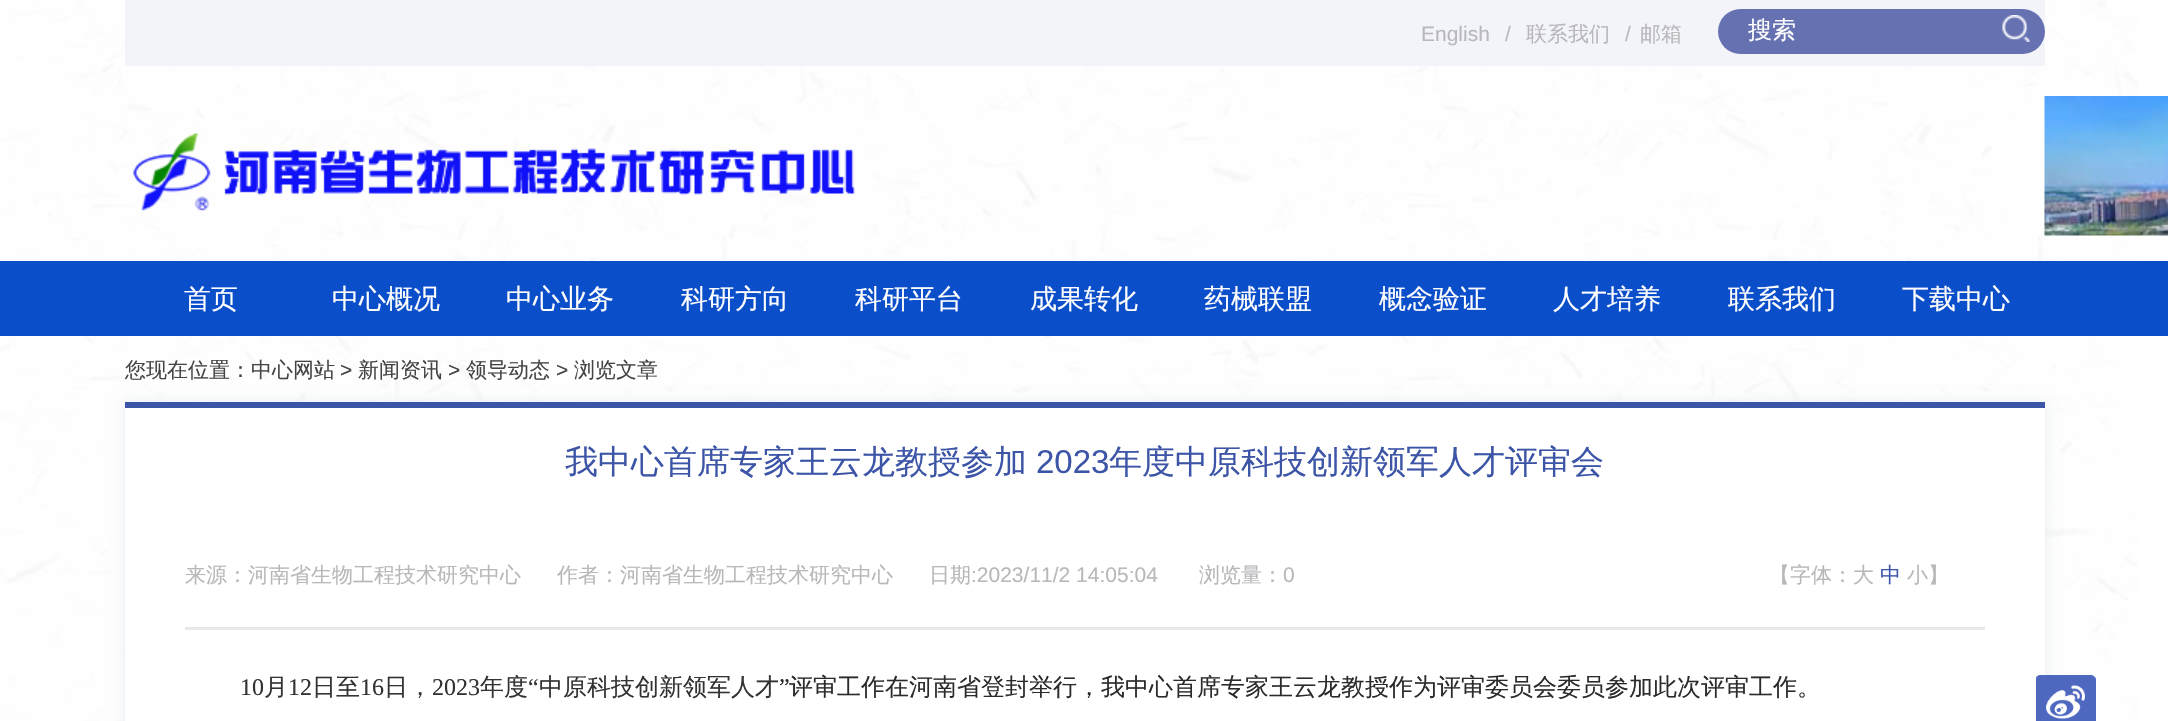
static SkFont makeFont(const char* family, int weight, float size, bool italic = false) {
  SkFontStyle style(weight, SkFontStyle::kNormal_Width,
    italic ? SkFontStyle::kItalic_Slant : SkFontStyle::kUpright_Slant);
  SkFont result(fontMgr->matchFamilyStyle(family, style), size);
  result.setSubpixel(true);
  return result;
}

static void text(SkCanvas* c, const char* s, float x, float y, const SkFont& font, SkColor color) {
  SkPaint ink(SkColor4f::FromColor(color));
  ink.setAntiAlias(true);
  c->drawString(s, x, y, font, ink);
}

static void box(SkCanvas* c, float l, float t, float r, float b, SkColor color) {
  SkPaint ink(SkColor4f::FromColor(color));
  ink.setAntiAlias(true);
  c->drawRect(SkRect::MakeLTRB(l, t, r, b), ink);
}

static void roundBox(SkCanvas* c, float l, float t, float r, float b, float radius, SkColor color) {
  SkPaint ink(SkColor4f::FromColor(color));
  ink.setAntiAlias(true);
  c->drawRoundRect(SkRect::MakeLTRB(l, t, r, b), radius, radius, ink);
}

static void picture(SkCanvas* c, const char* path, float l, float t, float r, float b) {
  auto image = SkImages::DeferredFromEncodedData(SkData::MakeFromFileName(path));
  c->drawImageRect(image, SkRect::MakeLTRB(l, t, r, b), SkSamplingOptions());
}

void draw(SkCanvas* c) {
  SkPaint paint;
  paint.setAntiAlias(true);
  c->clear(0xffffffff);
  picture(c, "img_01.png", 0, 0, 2139, 721);
  box(c, 125, 0, 2045, 66, 0xfff3f4fa);
  SkFont face1 = makeFont("Liberation Sans", 400, 21);
  text(c, "English", 1421, 41, face1, 0xffb8b8bb);
  text(c, "/", 1505, 41, face1, 0xffb8b8bb);
  SkFont face2 = makeFont("WenQuanYi Zen Hei", 500, 21);
  text(c, "联系我们", 1526, 41, face2, 0xffb8b8bb);
  text(c, "/", 1625, 41, face1, 0xffb8b8bb);
  text(c, "邮箱", 1640, 41, face2, 0xffb8b8bb);
  roundBox(c, 1718, 9, 2045, 54, 22.5f, 0xff6671b2);
  SkFont face3 = makeFont("WenQuanYi Zen Hei", 500, 24);
  text(c, "搜索", 1748, 38, face3, 0xffffffff);
  picture(c, "img_02.png", 2002, 15, 2030, 42);
  picture(c, "img_03.png", 133, 133, 856, 211);
  picture(c, "img_04.png", 2044, 96, 2168, 236);
  box(c, 0, 261, 2168, 336, 0xff0b4eca);
  SkFont face4 = makeFont("WenQuanYi Zen Hei", 500, 27);
  text(c, "首页", 184, 308, face4, 0xffffffff);
  text(c, "中心概况", 332, 308, face4, 0xffffffff);
  text(c, "中心业务", 506, 308, face4, 0xffffffff);
  text(c, "科研方向", 681, 308, face4, 0xffffffff);
  text(c, "科研平台", 855, 308, face4, 0xffffffff);
  text(c, "成果转化", 1030, 308, face4, 0xffffffff);
  text(c, "药械联盟", 1204, 308, face4, 0xffffffff);
  text(c, "概念验证", 1379, 308, face4, 0xffffffff);
  text(c, "人才培养", 1553, 308, face4, 0xffffffff);
  text(c, "联系我们", 1728, 308, face4, 0xffffffff);
  text(c, "下载中心", 1902, 308, face4, 0xffffffff);
  text(c, "您现在位置：中心网站", 125, 377, face2, 0xff444444);
  text(c, ">", 340, 377, face1, 0xff444444);
  text(c, "新闻资讯", 358, 377, face2, 0xff444444);
  text(c, ">", 448, 377, face1, 0xff444444);
  text(c, "领导动态", 466, 377, face2, 0xff444444);
  text(c, ">", 556, 377, face1, 0xff444444);
  text(c, "浏览文章", 574, 377, face2, 0xff444444);
  paint.setColor(0xffe6ecf2);
  paint.setMaskFilter(SkMaskFilter::MakeBlur(kNormal_SkBlurStyle, 6));
  c->drawRect(SkRect::MakeLTRB(125, 402, 2045, 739), paint);
  paint.setMaskFilter(nullptr);
  box(c, 125, 408, 2045, 721, 0xffffffff);
  box(c, 125, 402, 2045, 408, 0xff3d55a7);
  SkFont face5 = makeFont("WenQuanYi Zen Hei", 500, 33);
  text(c, "我中心首席专家王云龙教授参加", 565, 473, face5, 0xff3d55a7);
  SkFont face6 = makeFont("Liberation Sans", 400, 33);
  text(c, "2023", 1036, 473, face6, 0xff3d55a7);
  text(c, "年度中原科技创新领军人才评审会", 1109, 473, face5, 0xff3d55a7);
  box(c, 185, 627, 1985, 630, 0xffe9e9e9);
  text(c, "来源：河南省生物工程技术研究中心", 185, 582, face2, 0xffb8b8bb);
  text(c, "作者：河南省生物工程技术研究中心", 557, 582, face2, 0xffb8b8bb);
  text(c, "日期", 929, 582, face2, 0xffb8b8bb);
  text(c, ":2023/11/2 14:05:04", 971, 582, face1, 0xffb8b8bb);
  text(c, "浏览量：", 1199, 582, face2, 0xffb8b8bb);
  text(c, "0", 1283, 582, face1, 0xffb8b8bb);
  text(c, "【字体：大", 1769, 582, face2, 0xffb8b8bb);
  text(c, "中", 1880, 582, face2, 0xff3d55a7);
  text(c, "小】", 1907, 582, face2, 0xffb8b8bb);
  SkFont face7 = makeFont("Liberation Serif", 400, 24);
  text(c, "10", 240, 695, face7, 0xff333333);
  text(c, "月", 264, 695, face3, 0xff333333);
  text(c, "12", 288, 695, face7, 0xff333333);
  text(c, "日至", 312, 695, face3, 0xff333333);
  text(c, "16", 360, 695, face7, 0xff333333);
  text(c, "日，", 384, 695, face3, 0xff333333);
  text(c, "2023", 432, 695, face7, 0xff333333);
  text(c, "年度", 480, 695, face3, 0xff333333);
  text(c, "“", 528, 695, face7, 0xff333333);
  text(c, "中原科技创新领军人才", 539, 695, face3, 0xff333333);
  text(c, "”", 779, 695, face7, 0xff2b2b2b);
  text(c, "评审工作在河南省登封举行，我中心首席专家王云龙教授作为评审委员会委员参加此次评审工作。", 789, 695, face3, 0xff2b2b2b);
  picture(c, "img_05.png", 2036, 675, 2096, 721);
}
